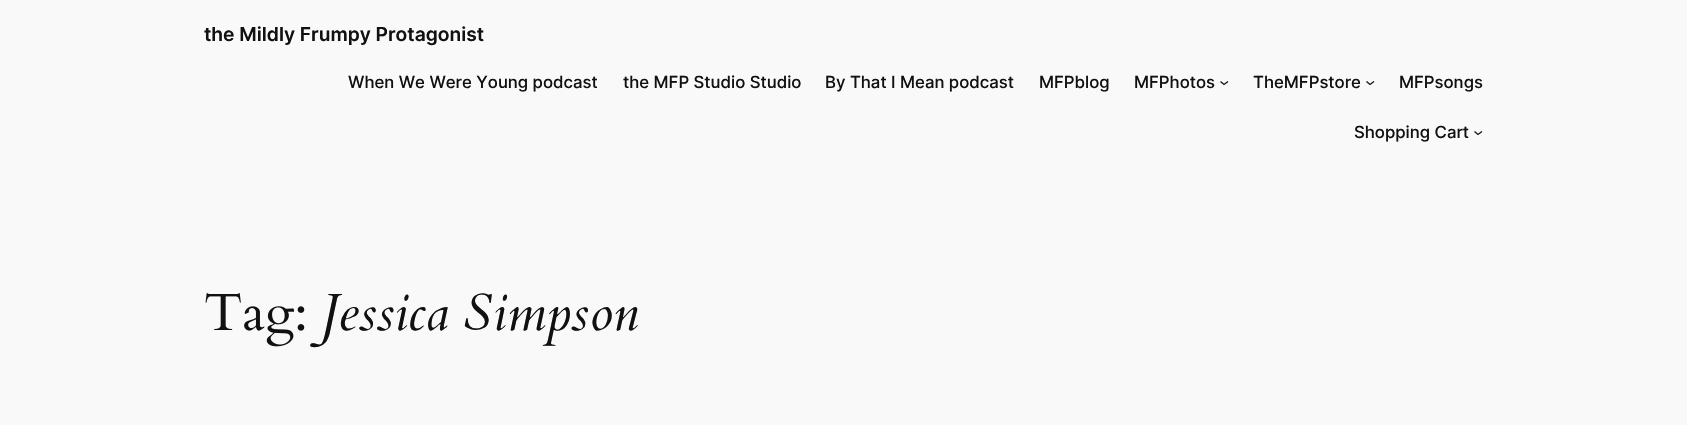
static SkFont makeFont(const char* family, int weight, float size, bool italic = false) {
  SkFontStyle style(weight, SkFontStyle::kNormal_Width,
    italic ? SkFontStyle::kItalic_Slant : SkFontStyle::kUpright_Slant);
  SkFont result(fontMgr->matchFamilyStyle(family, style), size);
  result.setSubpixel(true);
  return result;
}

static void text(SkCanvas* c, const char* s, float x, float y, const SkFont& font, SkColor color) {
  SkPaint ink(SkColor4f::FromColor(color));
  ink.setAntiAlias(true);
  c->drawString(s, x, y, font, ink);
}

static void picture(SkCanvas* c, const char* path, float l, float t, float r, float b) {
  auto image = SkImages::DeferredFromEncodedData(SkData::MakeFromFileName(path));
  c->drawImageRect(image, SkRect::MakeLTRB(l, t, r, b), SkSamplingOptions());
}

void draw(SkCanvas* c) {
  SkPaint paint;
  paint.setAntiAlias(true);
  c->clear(0xfff9f9f9);
  SkFont face1 = makeFont("Inter", 600, 19.25f);
  text(c, "the Mildly Frumpy Protagonist", 204, 41, face1, 0xff111111);
  SkFont face2 = makeFont("Inter", 500, 16.75f);
  text(c, "When We Were Young podcast", 348, 88, face2, 0xff111111);
  text(c, "the MFP Studio Studio", 623, 88, face2, 0xff111111);
  text(c, "By That I Mean podcast", 825, 88, face2, 0xff111111);
  text(c, "MFPblog", 1039, 88, face2, 0xff111111);
  text(c, "MFPhotos", 1134, 88, face2, 0xff111111);
  paint.setStyle(SkPaint::kStroke_Style);
  paint.setStrokeWidth(1.3f);
  paint.setColor(0xff111111);
  c->drawPath(SkPathBuilder().moveTo(1220.5f, 81.5f).lineTo(1224, 84.5f).lineTo(1228, 81.5f).detach(), paint);
  text(c, "TheMFPstore", 1253, 88, face2, 0xff111111);
  c->drawPath(SkPathBuilder().moveTo(1366.5f, 81.5f).lineTo(1370, 84.5f).lineTo(1374, 81.5f).detach(), paint);
  text(c, "MFPsongs", 1399, 88, face2, 0xff111111);
  text(c, "Shopping Cart", 1354, 138, face2, 0xff111111);
  c->drawPath(SkPathBuilder().moveTo(1474.5f, 131.5f).lineTo(1478, 134.5f).lineTo(1482, 131.5f).detach(), paint);
  picture(c, "img_01.png", 205, 293, 305, 347);
  SkFont face3 = makeFont("Cardo", 400, 52.25f, true);
  text(c, "Jessica Simpson", 321, 330, face3, 0xff111111);
}
